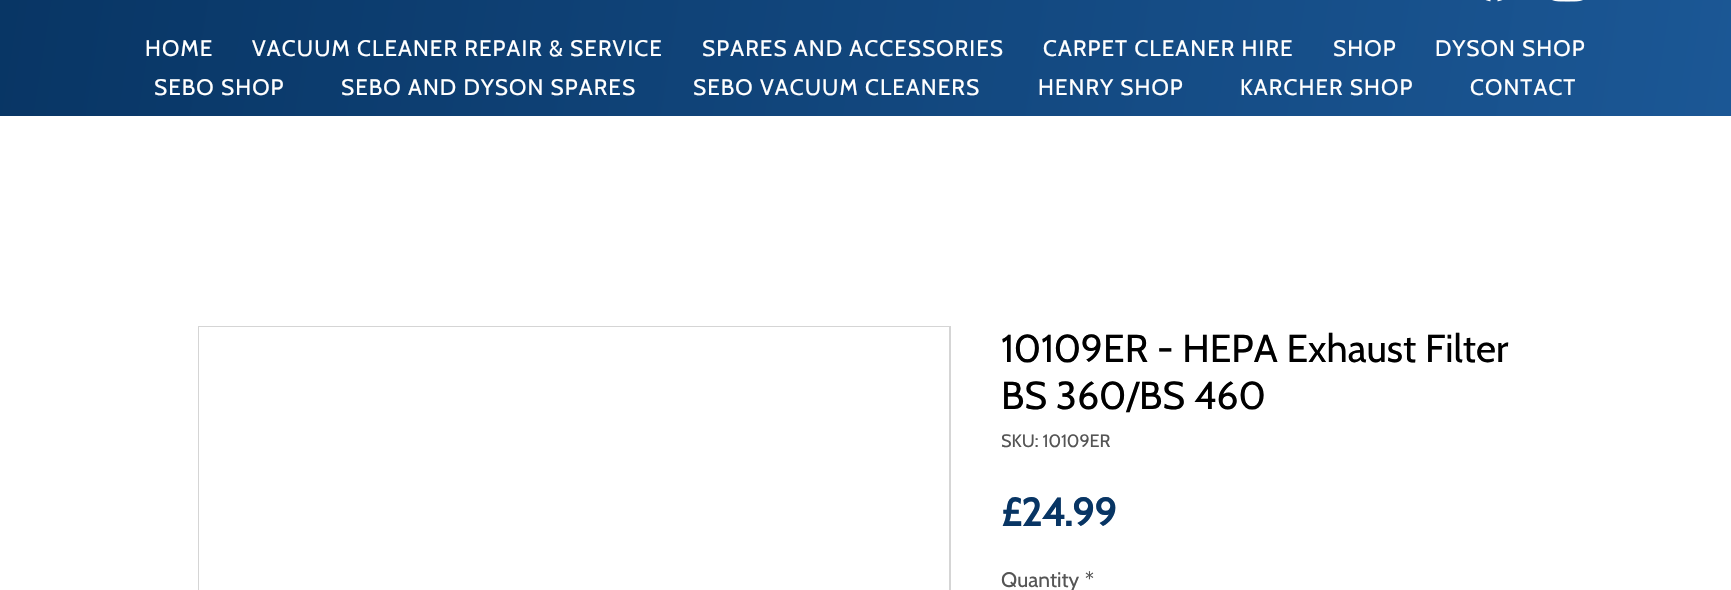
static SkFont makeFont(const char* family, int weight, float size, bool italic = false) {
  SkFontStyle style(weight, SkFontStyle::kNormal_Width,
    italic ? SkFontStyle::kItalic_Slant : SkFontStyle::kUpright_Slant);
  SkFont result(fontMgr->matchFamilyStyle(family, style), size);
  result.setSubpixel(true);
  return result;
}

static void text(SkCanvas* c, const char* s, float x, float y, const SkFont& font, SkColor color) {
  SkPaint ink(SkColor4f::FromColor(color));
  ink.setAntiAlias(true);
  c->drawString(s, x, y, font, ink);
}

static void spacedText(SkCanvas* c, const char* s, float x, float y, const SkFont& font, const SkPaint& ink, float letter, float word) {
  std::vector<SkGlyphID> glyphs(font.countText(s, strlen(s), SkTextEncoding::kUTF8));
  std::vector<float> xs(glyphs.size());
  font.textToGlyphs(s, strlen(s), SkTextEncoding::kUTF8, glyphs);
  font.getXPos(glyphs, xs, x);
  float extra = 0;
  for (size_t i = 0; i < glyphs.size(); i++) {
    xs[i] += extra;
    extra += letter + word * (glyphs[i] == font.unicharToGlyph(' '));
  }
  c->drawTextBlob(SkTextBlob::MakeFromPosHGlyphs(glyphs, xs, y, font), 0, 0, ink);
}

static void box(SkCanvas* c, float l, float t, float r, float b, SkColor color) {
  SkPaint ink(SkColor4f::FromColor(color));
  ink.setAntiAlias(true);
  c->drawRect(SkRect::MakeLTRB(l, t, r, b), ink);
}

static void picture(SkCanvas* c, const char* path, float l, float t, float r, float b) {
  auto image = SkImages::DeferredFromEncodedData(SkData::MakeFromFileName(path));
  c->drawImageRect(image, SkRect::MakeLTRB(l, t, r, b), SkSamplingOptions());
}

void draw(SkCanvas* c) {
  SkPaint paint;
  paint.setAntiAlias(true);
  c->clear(0xffffffff);
  {
    const SkColor colors[] = {0xff083564, 0xff1b5795};
    const float stops[] = {0, 1};
    const SkPoint ends[] = {{-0.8f, -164}, {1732, 110}};
    paint.setShader(SkGradientShader::MakeLinear(ends, colors, stops, 2, SkTileMode::kClamp));
    paint.setAlpha(255);
  }
  c->drawRect(SkRect::MakeLTRB(0, 0, 1731, 116), paint);
  picture(c, "img_01.png", 1485, 0, 1503, 2);
  picture(c, "img_02.png", 1552, 0, 1583, 2);
  SkFont face1 = makeFont("Cabin", 400, 22.5f);
  paint.setShader(nullptr);
  paint.setColor(0xffffffff);
  spacedText(c, "HOME", 145, 56, face1, paint, 1.1f, 0);
  spacedText(c, "VACUUM CLEANER REPAIR & SERVICE", 252, 56, face1, paint, 1.1f, 0);
  spacedText(c, "SPARES AND ACCESSORIES", 702, 56, face1, paint, 1.1f, 0);
  spacedText(c, "CARPET CLEANER HIRE", 1043, 56, face1, paint, 1.1f, 0);
  spacedText(c, "SHOP", 1333, 56, face1, paint, 1.1f, 0);
  spacedText(c, "DYSON SHOP", 1435, 56, face1, paint, 1.1f, 0);
  spacedText(c, "SEBO SHOP", 154, 95, face1, paint, 1.1f, 0);
  spacedText(c, "SEBO AND DYSON SPARES", 341, 95, face1, paint, 1.1f, 0);
  spacedText(c, "SEBO VACUUM CLEANERS", 693, 95, face1, paint, 1.1f, 0);
  spacedText(c, "HENRY SHOP", 1038, 95, face1, paint, 1.1f, 0);
  spacedText(c, "KARCHER SHOP", 1240, 95, face1, paint, 1.1f, 0);
  spacedText(c, "CONTACT", 1470, 95, face1, paint, 1.1f, 0);
  paint.setStyle(SkPaint::kStroke_Style);
  paint.setStrokeWidth(2);
  paint.setColor(0xffd5d5d5);
  c->drawRect(SkRect::MakeLTRB(199, 327, 950, 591), paint);
  box(c, 199, 327, 949, 590, 0xffffffff);
  SkFont face2 = makeFont("Cabin", 400, 39);
  text(c, "10109ER - HEPA Exhaust Filter", 1001, 362, face2, 0xff000000);
  text(c, "BS 360/BS 460", 1001, 409, face2, 0xff000000);
  SkFont face3 = makeFont("Cabin", 400, 18);
  text(c, "SKU: 10109ER", 1001, 447, face3, 0xff555555);
  SkFont face4 = makeFont("Cabin", 700, 39);
  text(c, "£24.99", 1001, 526, face4, 0xff083564);
  SkFont face5 = makeFont("Cabin", 400, 21);
  text(c, "Quantity", 1001, 587, face5, 0xff555555);
  text(c, "*", 1085, 587, face5, 0xff555555);
}
